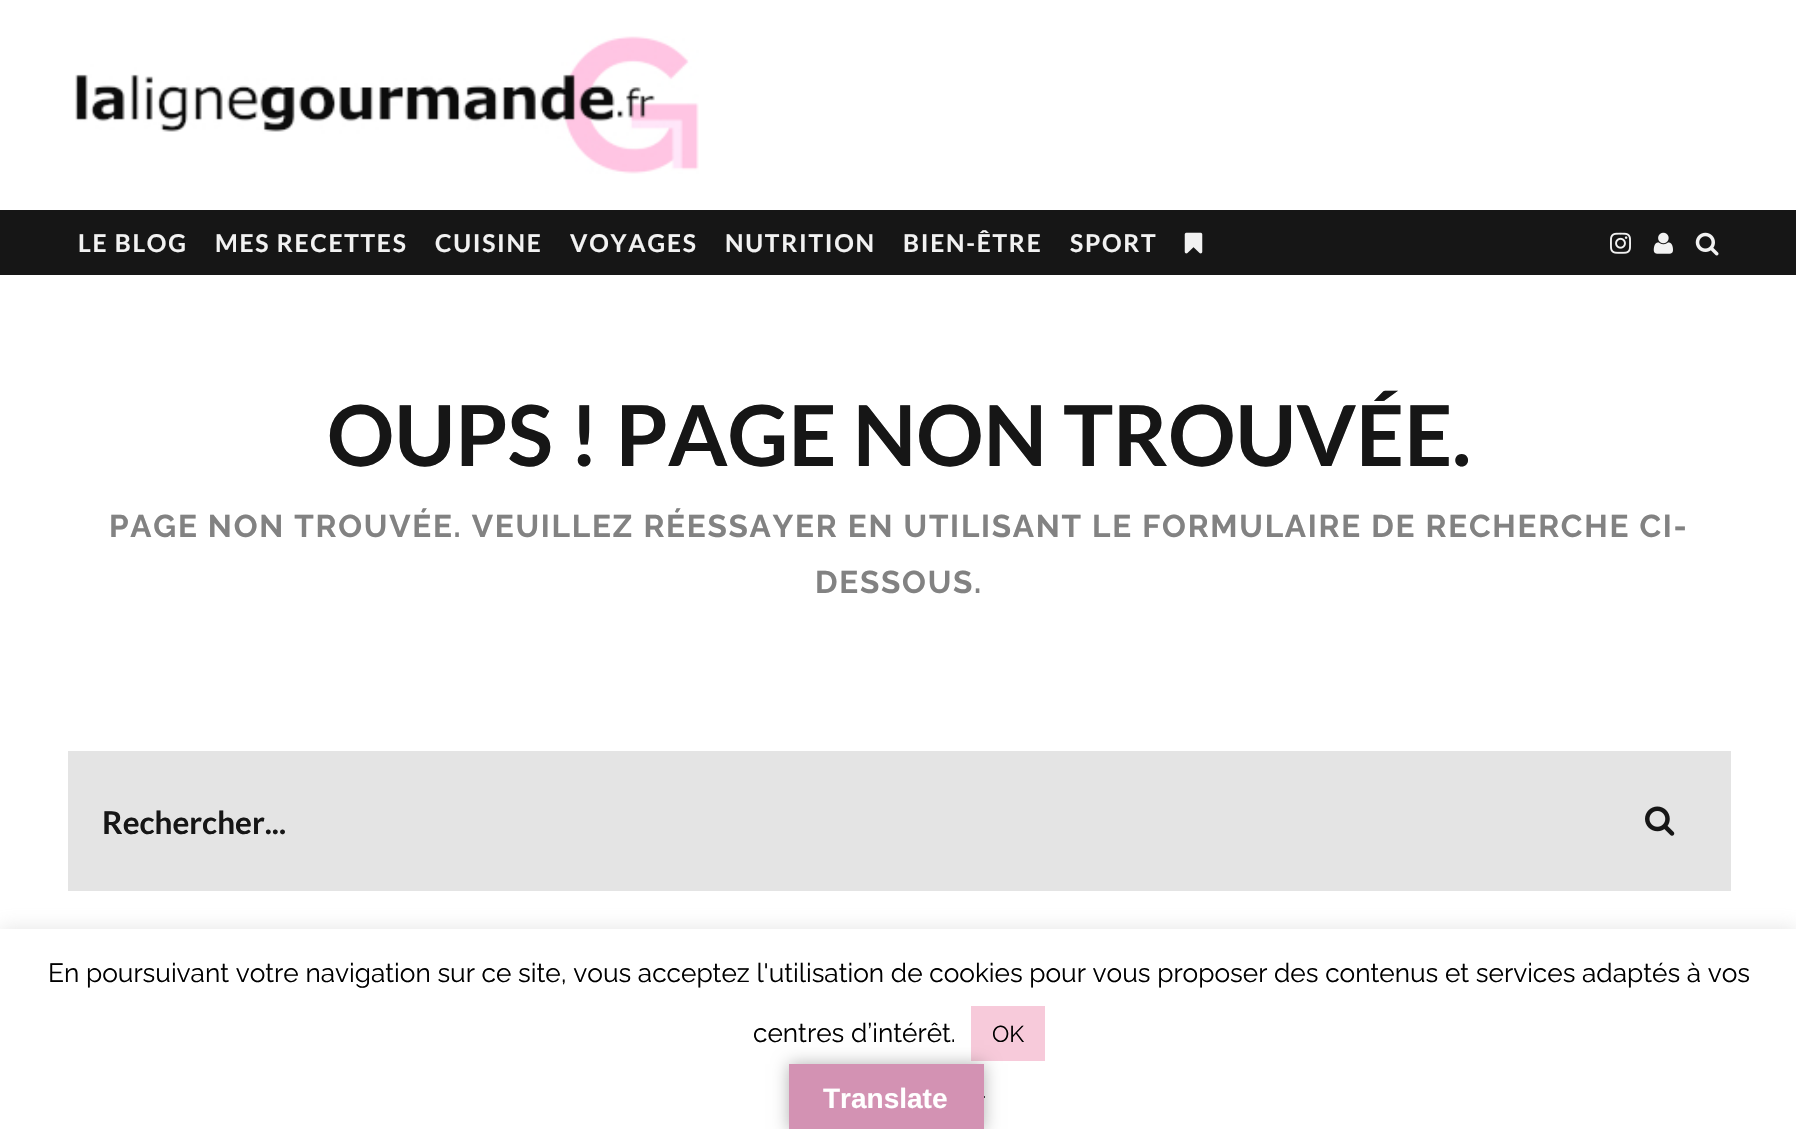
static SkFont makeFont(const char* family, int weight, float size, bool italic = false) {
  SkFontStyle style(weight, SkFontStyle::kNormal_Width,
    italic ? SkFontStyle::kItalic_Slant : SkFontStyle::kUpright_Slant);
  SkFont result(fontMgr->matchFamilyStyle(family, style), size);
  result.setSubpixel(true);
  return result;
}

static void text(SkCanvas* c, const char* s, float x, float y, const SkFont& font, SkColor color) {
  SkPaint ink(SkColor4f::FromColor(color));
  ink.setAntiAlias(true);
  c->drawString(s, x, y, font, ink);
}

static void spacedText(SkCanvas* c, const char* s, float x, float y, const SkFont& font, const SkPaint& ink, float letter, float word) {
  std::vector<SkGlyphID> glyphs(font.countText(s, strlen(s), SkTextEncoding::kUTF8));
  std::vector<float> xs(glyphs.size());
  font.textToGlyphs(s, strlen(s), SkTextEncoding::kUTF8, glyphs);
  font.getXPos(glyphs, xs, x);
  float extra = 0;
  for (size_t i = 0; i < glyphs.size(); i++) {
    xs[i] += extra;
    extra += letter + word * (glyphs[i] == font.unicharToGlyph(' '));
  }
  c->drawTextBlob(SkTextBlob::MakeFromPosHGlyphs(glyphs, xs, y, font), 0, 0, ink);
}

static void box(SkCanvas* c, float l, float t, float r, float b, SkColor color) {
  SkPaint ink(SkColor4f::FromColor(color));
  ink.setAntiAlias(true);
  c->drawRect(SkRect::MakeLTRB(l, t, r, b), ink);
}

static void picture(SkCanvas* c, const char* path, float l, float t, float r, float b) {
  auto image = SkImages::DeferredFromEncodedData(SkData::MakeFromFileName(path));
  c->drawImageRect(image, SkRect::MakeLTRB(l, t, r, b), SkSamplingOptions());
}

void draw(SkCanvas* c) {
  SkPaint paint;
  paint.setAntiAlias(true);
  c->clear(0xffffffff);
  picture(c, "img_01.png", 75, 36, 699, 174);
  box(c, 0, 210, 1796, 275, 0xff161616);
  SkFont face1 = makeFont("Lato", 700, 24.5f);
  paint.setColor(0xfff2f2f2);
  spacedText(c, "LE BLOG", 78, 252, face1, paint, 1.75f, 0);
  spacedText(c, "MES RECETTES", 215, 252, face1, paint, 1.75f, 0);
  spacedText(c, "CUISINE", 435, 252, face1, paint, 1.75f, 0);
  spacedText(c, "VOYAGES", 570, 252, face1, paint, 1.75f, 0);
  spacedText(c, "NUTRITION", 725, 252, face1, paint, 1.75f, 0);
  spacedText(c, "BIEN-ÊTRE", 903, 252, face1, paint, 1.75f, 0);
  spacedText(c, "SPORT", 1070, 252, face1, paint, 1.75f, 0);
  picture(c, "img_02.png", 1184, 232, 1203, 254);
  picture(c, "img_03.png", 1610, 232, 1631, 254);
  picture(c, "img_04.png", 1653, 232, 1673, 254);
  picture(c, "img_05.png", 1695, 232, 1719, 256);
  SkFont face2 = makeFont("Lato", 700, 84);
  text(c, "OUPS ! PAGE NON TROUVÉE.", 327, 466, face2, 0xff161616);
  SkFont face3 = makeFont("Raleway", 700, 31.5f);
  paint.setColor(0xff828282);
  spacedText(c, "PAGE NON TROUVÉE. VEUILLEZ RÉESSAYER EN UTILISANT LE FORMULAIRE DE RECHERCHE CI-", 109, 537, face3, paint, 1.75f, 0);
  spacedText(c, "DESSOUS.", 815, 593, face3, paint, 1.75f, 0);
  box(c, 68, 751, 1731, 891, 0xffe4e4e4);
  SkFont face4 = makeFont("Lato", 700, 31.5f);
  text(c, "Rechercher...", 102, 834, face4, 0xff161616);
  picture(c, "img_06.png", 1645, 806, 1675, 836);
  paint.setColor(0x4dacabab);
  paint.setMaskFilter(SkMaskFilter::MakeBlur(kNormal_SkBlurStyle, 9));
  c->drawRect(SkRect::MakeLTRB(0, 928, 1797, 1129), paint);
  paint.setMaskFilter(nullptr);
  box(c, 0, 929, 1796, 1129, 0xffffffff);
  SkFont face5 = makeFont("Raleway", 400, 26.25f);
  text(c, "En poursuivant votre navigation sur ce site, vous acceptez l'utilisation de cookies pour vous proposer des contenus et services adaptés à vos", 48, 982, face5, 0xff000000);
  text(c, "centres d’intérêt.", 753, 1042, face5, 0xff000000);
  box(c, 971, 1006, 1045, 1061, 0xfff7cada);
  SkFont face6 = makeFont("Raleway", 400, 23);
  text(c, "OK", 992, 1042, face6, 0xff000000);
  box(c, 984, 1096, 985, 1098, 0xff444444);
  paint.setColor(0x4d000000);
  paint.setMaskFilter(SkMaskFilter::MakeBlur(kNormal_SkBlurStyle, 8));
  c->drawRect(SkRect::MakeLTRB(789, 1064, 984, 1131), paint);
  paint.setMaskFilter(nullptr);
  box(c, 789, 1064, 984, 1129, 0xffd392b3);
  SkFont face7 = makeFont("Liberation Sans", 700, 28);
  text(c, "Translate", 823, 1108, face7, 0xffffffff);
}
